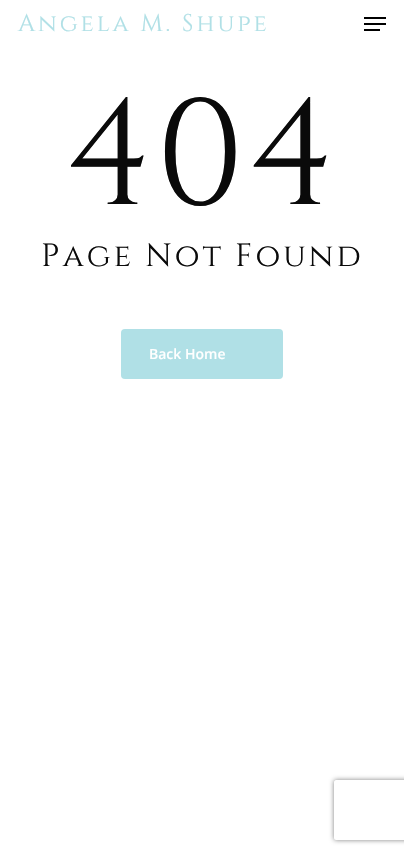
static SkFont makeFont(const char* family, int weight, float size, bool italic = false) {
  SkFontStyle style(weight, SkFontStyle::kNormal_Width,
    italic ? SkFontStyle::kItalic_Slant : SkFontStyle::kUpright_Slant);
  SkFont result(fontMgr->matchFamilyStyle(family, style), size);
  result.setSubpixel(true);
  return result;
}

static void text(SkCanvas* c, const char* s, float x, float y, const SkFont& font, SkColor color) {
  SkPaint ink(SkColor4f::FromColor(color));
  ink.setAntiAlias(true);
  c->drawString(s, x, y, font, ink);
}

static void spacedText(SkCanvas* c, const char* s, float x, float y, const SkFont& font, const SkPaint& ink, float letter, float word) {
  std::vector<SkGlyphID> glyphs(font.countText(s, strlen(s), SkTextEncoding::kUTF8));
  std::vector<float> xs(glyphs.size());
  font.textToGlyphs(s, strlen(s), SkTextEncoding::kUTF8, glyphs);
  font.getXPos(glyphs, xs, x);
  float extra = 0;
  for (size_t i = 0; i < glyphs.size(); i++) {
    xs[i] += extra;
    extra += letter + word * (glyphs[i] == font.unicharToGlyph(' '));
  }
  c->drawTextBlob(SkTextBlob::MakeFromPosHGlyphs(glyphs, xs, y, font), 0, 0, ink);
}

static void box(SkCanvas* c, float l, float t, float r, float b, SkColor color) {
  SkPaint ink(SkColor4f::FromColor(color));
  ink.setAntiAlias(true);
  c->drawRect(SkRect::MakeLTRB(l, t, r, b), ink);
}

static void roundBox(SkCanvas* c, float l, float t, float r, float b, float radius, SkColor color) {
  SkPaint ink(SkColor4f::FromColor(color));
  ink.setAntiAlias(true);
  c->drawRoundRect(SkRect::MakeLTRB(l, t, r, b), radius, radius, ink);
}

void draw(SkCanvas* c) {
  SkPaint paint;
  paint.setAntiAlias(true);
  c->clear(0xffffffff);
  SkFont face1 = makeFont("Cinzel", 400, 24);
  paint.setColor(0xffb0e0e6);
  spacedText(c, "Angela M. Shupe", 18, 31, face1, paint, 3, 0);
  box(c, 364, 17, 386, 19, 0xff000000);
  box(c, 364, 29, 380, 31, 0xff000000);
  box(c, 364, 23, 386, 25, 0xff000000);
  SkFont face2 = makeFont("Cinzel", 400, 150);
  paint.setColor(0xff0a0a0a);
  spacedText(c, "404", 65, 204, face2, paint, 3, 0);
  SkFont face3 = makeFont("Cinzel", 400, 32);
  spacedText(c, "Page Not Found", 41, 266, face3, paint, 3, 0);
  roundBox(c, 121, 329, 283, 379, 4, 0xffb0e0e6);
  SkFont face4 = makeFont("Open Sans", 600, 14);
  text(c, "Back Home", 149, 359, face4, 0xffffffff);
  c->save();
  c->clipPath(SkPathBuilder(SkPathFillType::kEvenOdd).moveTo(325, 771).lineTo(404, 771).lineTo(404, 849).lineTo(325, 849).close().moveTo(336, 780).lineTo(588, 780).cubicTo(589, 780, 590, 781, 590, 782).lineTo(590, 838).cubicTo(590, 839, 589, 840, 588, 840).lineTo(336, 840).cubicTo(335, 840, 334, 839, 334, 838).lineTo(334, 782).cubicTo(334, 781, 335, 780, 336, 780).close().detach(), true);
  paint.setColor(0xff808080);
  paint.setMaskFilter(SkMaskFilter::MakeBlur(kNormal_SkBlurStyle, 2.5f));
  c->drawRoundRect(SkRect::MakeLTRB(334, 780, 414, 840), 2, 2, paint);
  paint.setMaskFilter(nullptr);
  c->restore();
}
